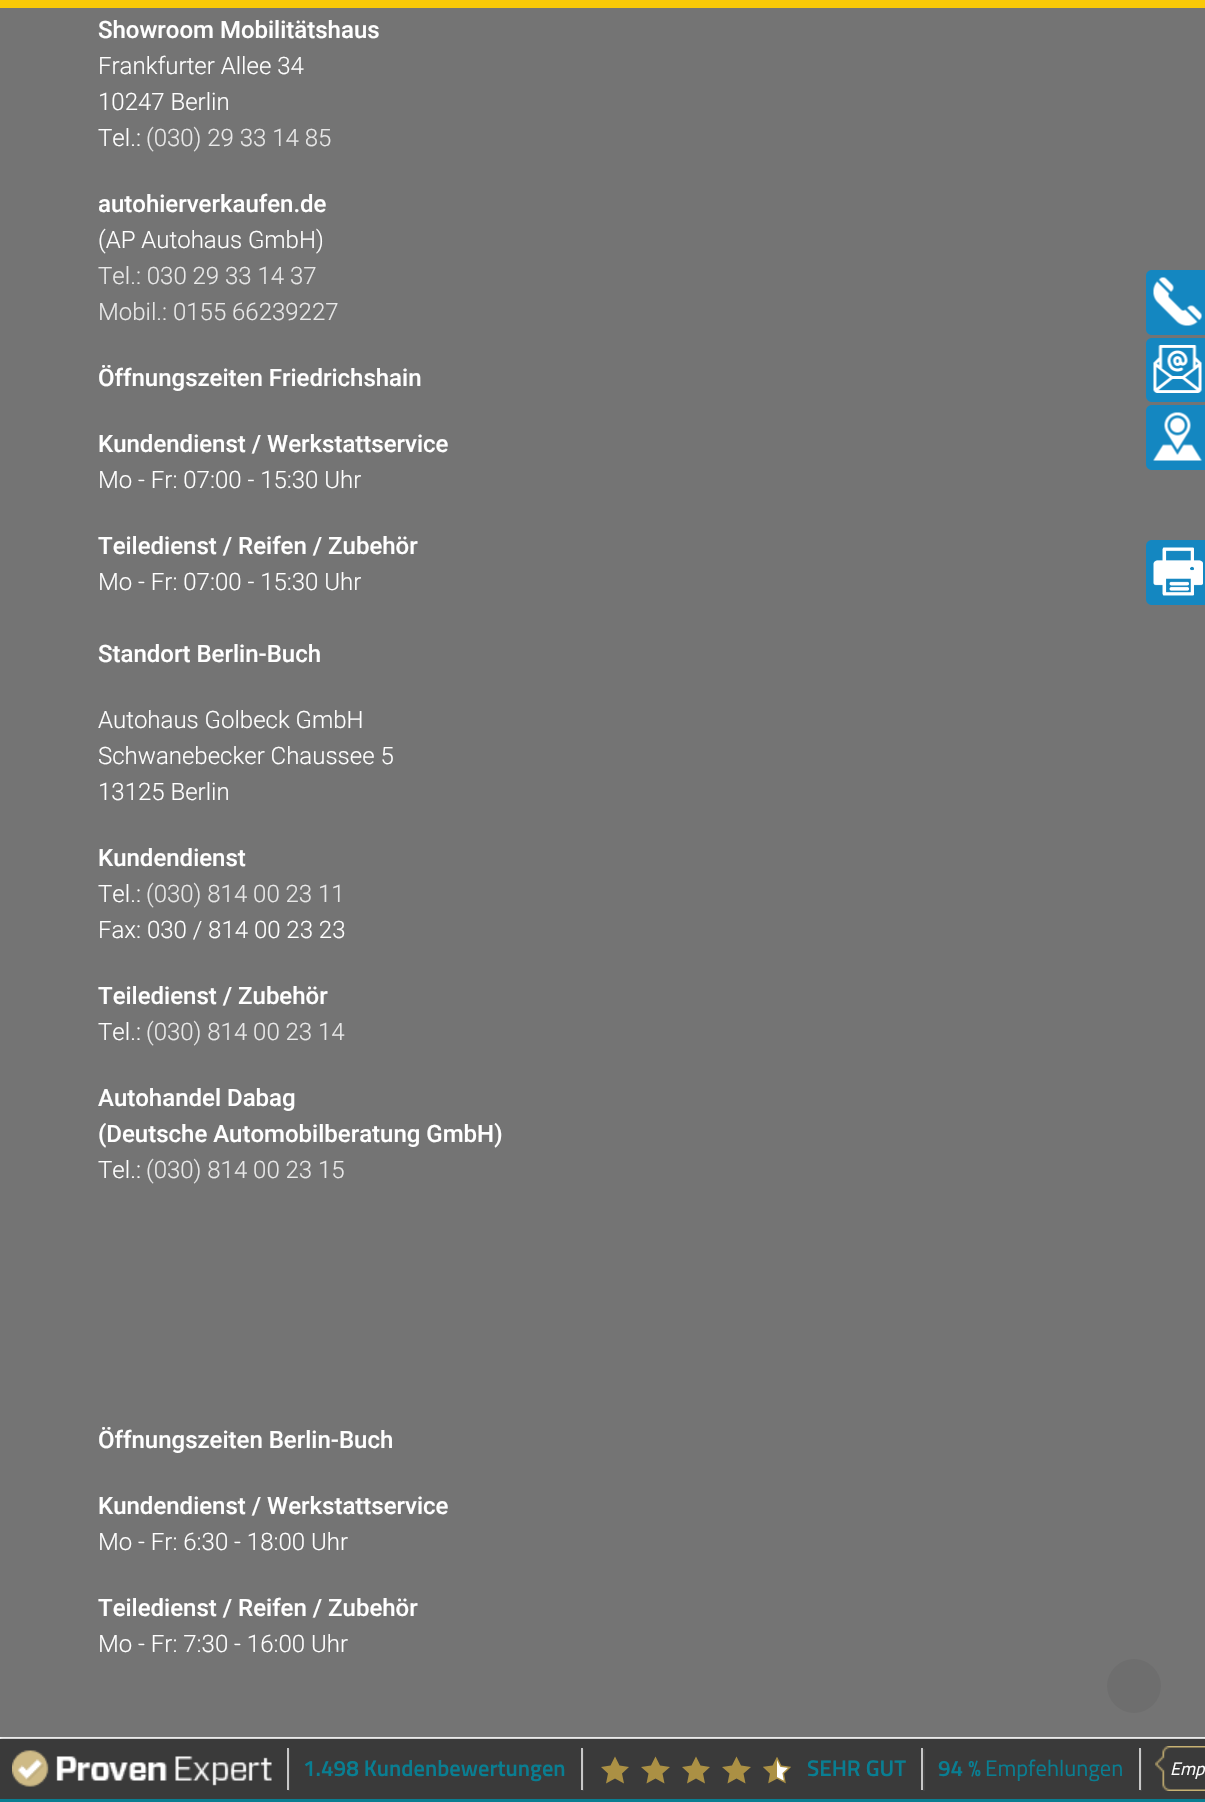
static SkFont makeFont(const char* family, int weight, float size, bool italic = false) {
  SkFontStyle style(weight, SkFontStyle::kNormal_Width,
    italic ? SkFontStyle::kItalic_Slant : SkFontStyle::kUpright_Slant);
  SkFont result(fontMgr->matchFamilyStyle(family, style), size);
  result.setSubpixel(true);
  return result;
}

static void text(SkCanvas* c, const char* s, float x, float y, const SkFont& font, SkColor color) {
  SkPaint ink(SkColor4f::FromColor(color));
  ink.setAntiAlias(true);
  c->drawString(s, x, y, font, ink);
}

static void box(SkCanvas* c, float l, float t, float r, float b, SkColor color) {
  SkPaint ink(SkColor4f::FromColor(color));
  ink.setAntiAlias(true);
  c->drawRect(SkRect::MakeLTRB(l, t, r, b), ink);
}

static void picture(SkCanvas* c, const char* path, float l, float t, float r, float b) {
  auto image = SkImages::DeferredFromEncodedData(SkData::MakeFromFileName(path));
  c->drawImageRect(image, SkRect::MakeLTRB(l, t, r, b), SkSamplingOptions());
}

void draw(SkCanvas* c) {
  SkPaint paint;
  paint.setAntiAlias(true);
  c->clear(0xffffffff);
  box(c, 0, 0, 1205, 8, 0xfff9c907);
  box(c, 0, 8, 1205, 1737, 0xff747474);
  SkFont face1 = makeFont("Roboto", 500, 24);
  text(c, "Showroom Mobilitätshaus", 98, 38, face1, 0xffffffff);
  SkFont face2 = makeFont("Roboto", 300, 24);
  text(c, "Frankfurter Allee 34", 98, 74, face2, 0xffffffff);
  text(c, "10247 Berlin", 98, 110, face2, 0xffffffff);
  text(c, "Tel.:", 98, 146, face2, 0xffffffff);
  text(c, "(030) 29 33 14 85", 146, 146, face2, 0xffe8e8e8);
  text(c, "autohierverkaufen.de", 98, 212, face1, 0xffffffff);
  text(c, "(AP Autohaus GmbH)", 98, 248, face2, 0xffffffff);
  text(c, "Tel.: 030 29 33 14 37", 98, 284, face2, 0xffe8e8e8);
  text(c, "Mobil.: 0155 66239227", 98, 320, face2, 0xffe8e8e8);
  text(c, "Öffnungszeiten Friedrichshain", 98, 386, face1, 0xffffffff);
  text(c, "Kundendienst / Werkstattservice", 98, 452, face1, 0xffffffff);
  text(c, "Mo - Fr: 07:00 - 15:30 Uhr", 98, 488, face2, 0xffffffff);
  text(c, "Teiledienst / Reifen / Zubehör", 98, 554, face1, 0xffffffff);
  text(c, "Mo - Fr: 07:00 - 15:30 Uhr", 98, 590, face2, 0xffffffff);
  text(c, "Standort Berlin-Buch", 98, 662, face1, 0xffffffff);
  text(c, "Autohaus Golbeck GmbH", 98, 728, face2, 0xffffffff);
  text(c, "Schwanebecker Chaussee 5", 98, 764, face2, 0xffffffff);
  text(c, "13125 Berlin", 98, 800, face2, 0xffffffff);
  text(c, "Kundendienst", 98, 866, face1, 0xffffffff);
  text(c, "Tel.:", 98, 902, face2, 0xffffffff);
  text(c, "(030) 814 00 23 11", 146, 902, face2, 0xffe8e8e8);
  text(c, "Fax: 030 / 814 00 23 23", 98, 938, face2, 0xffffffff);
  text(c, "Teiledienst / Zubehör", 98, 1004, face1, 0xffffffff);
  text(c, "Tel.:", 98, 1040, face2, 0xffffffff);
  text(c, "(030) 814 00 23 14", 146, 1040, face2, 0xffe8e8e8);
  text(c, "Autohandel Dabag", 98, 1106, face1, 0xffffffff);
  text(c, "(Deutsche Automobilberatung GmbH)", 98, 1142, face1, 0xffffffff);
  text(c, "Tel.:", 98, 1178, face2, 0xffffffff);
  text(c, "(030) 814 00 23 15", 146, 1178, face2, 0xffe8e8e8);
  text(c, "Öffnungszeiten Berlin-Buch", 98, 1448, face1, 0xffffffff);
  text(c, "Kundendienst / Werkstattservice", 98, 1514, face1, 0xffffffff);
  text(c, "Mo - Fr: 6:30 - 18:00 Uhr", 98, 1550, face2, 0xffffffff);
  text(c, "Teiledienst / Reifen / Zubehör", 98, 1616, face1, 0xffffffff);
  text(c, "Mo - Fr: 7:30 - 16:00 Uhr", 98, 1652, face2, 0xffffffff);
  paint.setColor(0xff888888);
  paint.setMaskFilter(SkMaskFilter::MakeBlur(kNormal_SkBlurStyle, 1.5f));
  c->drawRect(SkRect::MakeLTRB(0, 1739, 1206, 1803), paint);
  paint.setMaskFilter(nullptr);
  box(c, 0, 1739, 1205, 1799, 0xff3a3a3a);
  picture(c, "img_01.png", 12, 1750, 272, 1787);
  box(c, 288, 1749, 290, 1791, 0xff444444);
  box(c, 287, 1748, 289, 1790, 0xffc7c7c7);
  SkFont face3 = makeFont("Titillium Web", 600, 22.5f);
  text(c, "1.498 Kundenbewertungen", 303, 1776, face3, 0xff097e92);
  box(c, 582, 1749, 584, 1791, 0xff444444);
  box(c, 581, 1748, 583, 1790, 0xffc7c7c7);
  paint.setColor(0xffab9044);
  c->drawPath(SkPathBuilder().moveTo(615, 1756.5f).lineTo(619.5f, 1765.5f).lineTo(629, 1767).lineTo(622, 1773.5f).lineTo(624, 1783.5f).lineTo(615, 1778.5f).lineTo(606, 1783.5f).lineTo(608, 1773.5f).lineTo(601, 1767).lineTo(610.5f, 1765.5f).close().detach(), paint);
  c->drawPath(SkPathBuilder().moveTo(655.5f, 1756.5f).lineTo(660, 1765.5f).lineTo(670, 1767).lineTo(662.5f, 1773.5f).lineTo(664.5f, 1783.5f).lineTo(655.5f, 1778.5f).lineTo(646.5f, 1783.5f).lineTo(648.5f, 1773.5f).lineTo(641, 1767).lineTo(651, 1765.5f).close().detach(), paint);
  c->drawPath(SkPathBuilder().moveTo(696, 1756.5f).lineTo(700.5f, 1765.5f).lineTo(710, 1767).lineTo(703, 1773.5f).lineTo(705, 1783.5f).lineTo(696, 1778.5f).lineTo(687, 1783.5f).lineTo(689, 1773.5f).lineTo(682, 1767).lineTo(691.5f, 1765.5f).close().detach(), paint);
  c->drawPath(SkPathBuilder().moveTo(736.5f, 1756.5f).lineTo(741, 1765.5f).lineTo(751, 1767).lineTo(743.5f, 1773.5f).lineTo(745.5f, 1783.5f).lineTo(736.5f, 1778.5f).lineTo(727.5f, 1783.5f).lineTo(729.5f, 1773.5f).lineTo(722, 1767).lineTo(732, 1765.5f).close().detach(), paint);
  picture(c, "img_02.png", 763, 1757, 791, 1784);
  text(c, "SEHR GUT", 807, 1776, face3, 0xff097e92);
  box(c, 923, 1749, 925, 1791, 0xff444444);
  box(c, 921, 1748, 923, 1790, 0xffc7c7c7);
  text(c, "94 %", 938, 1776, face3, 0xff097e92);
  SkFont face4 = makeFont("Titillium Web", 400, 22.5f);
  text(c, "Empfehlungen", 985, 1776, face4, 0xff097e92);
  box(c, 1140, 1749, 1142, 1791, 0xff444444);
  box(c, 1139, 1748, 1141, 1790, 0xffc7c7c7);
  picture(c, "img_03.png", 1155, 1746, 1205, 1791);
  SkFont face5 = makeFont("Titillium Web", 400, 18, true);
  text(c, "Emp", 1170, 1775, face5, 0xffffffff);
  box(c, 0, 1799, 1205, 1802, 0xff097e92);
  paint.setColor(0xff1487c1);
  c->drawPath(SkPathBuilder().moveTo(1152, 270).lineTo(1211, 270).lineTo(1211, 335).lineTo(1152, 335).cubicTo(1148.5f, 335, 1146, 332.5f, 1146, 329).lineTo(1146, 276).cubicTo(1146, 272.5f, 1148.5f, 270, 1152, 270).close().detach(), paint);
  picture(c, "img_04.png", 1153, 277, 1202, 326);
  c->drawPath(SkPathBuilder().moveTo(1152, 338).lineTo(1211, 338).lineTo(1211, 402).lineTo(1152, 402).cubicTo(1148.5f, 402, 1146, 399.5f, 1146, 396).lineTo(1146, 344).cubicTo(1146, 340.5f, 1148.5f, 338, 1152, 338).close().detach(), paint);
  picture(c, "img_05.png", 1153, 345, 1202, 393);
  c->drawPath(SkPathBuilder().moveTo(1152, 405).lineTo(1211, 405).lineTo(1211, 470).lineTo(1152, 470).cubicTo(1148.5f, 470, 1146, 467.5f, 1146, 464).lineTo(1146, 411).cubicTo(1146, 407.5f, 1148.5f, 405, 1152, 405).close().detach(), paint);
  picture(c, "img_06.png", 1153, 412, 1202, 461);
  c->drawPath(SkPathBuilder().moveTo(1152, 540).lineTo(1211, 540).lineTo(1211, 605).lineTo(1152, 605).cubicTo(1148.5f, 605, 1146, 602.5f, 1146, 599).lineTo(1146, 546).cubicTo(1146, 542.5f, 1148.5f, 540, 1152, 540).close().detach(), paint);
  picture(c, "img_07.png", 1153, 547, 1203, 596);
  paint.setColor(0xff6e6e6e);
  c->drawCircle(1134, 1686, 27, paint);
}
